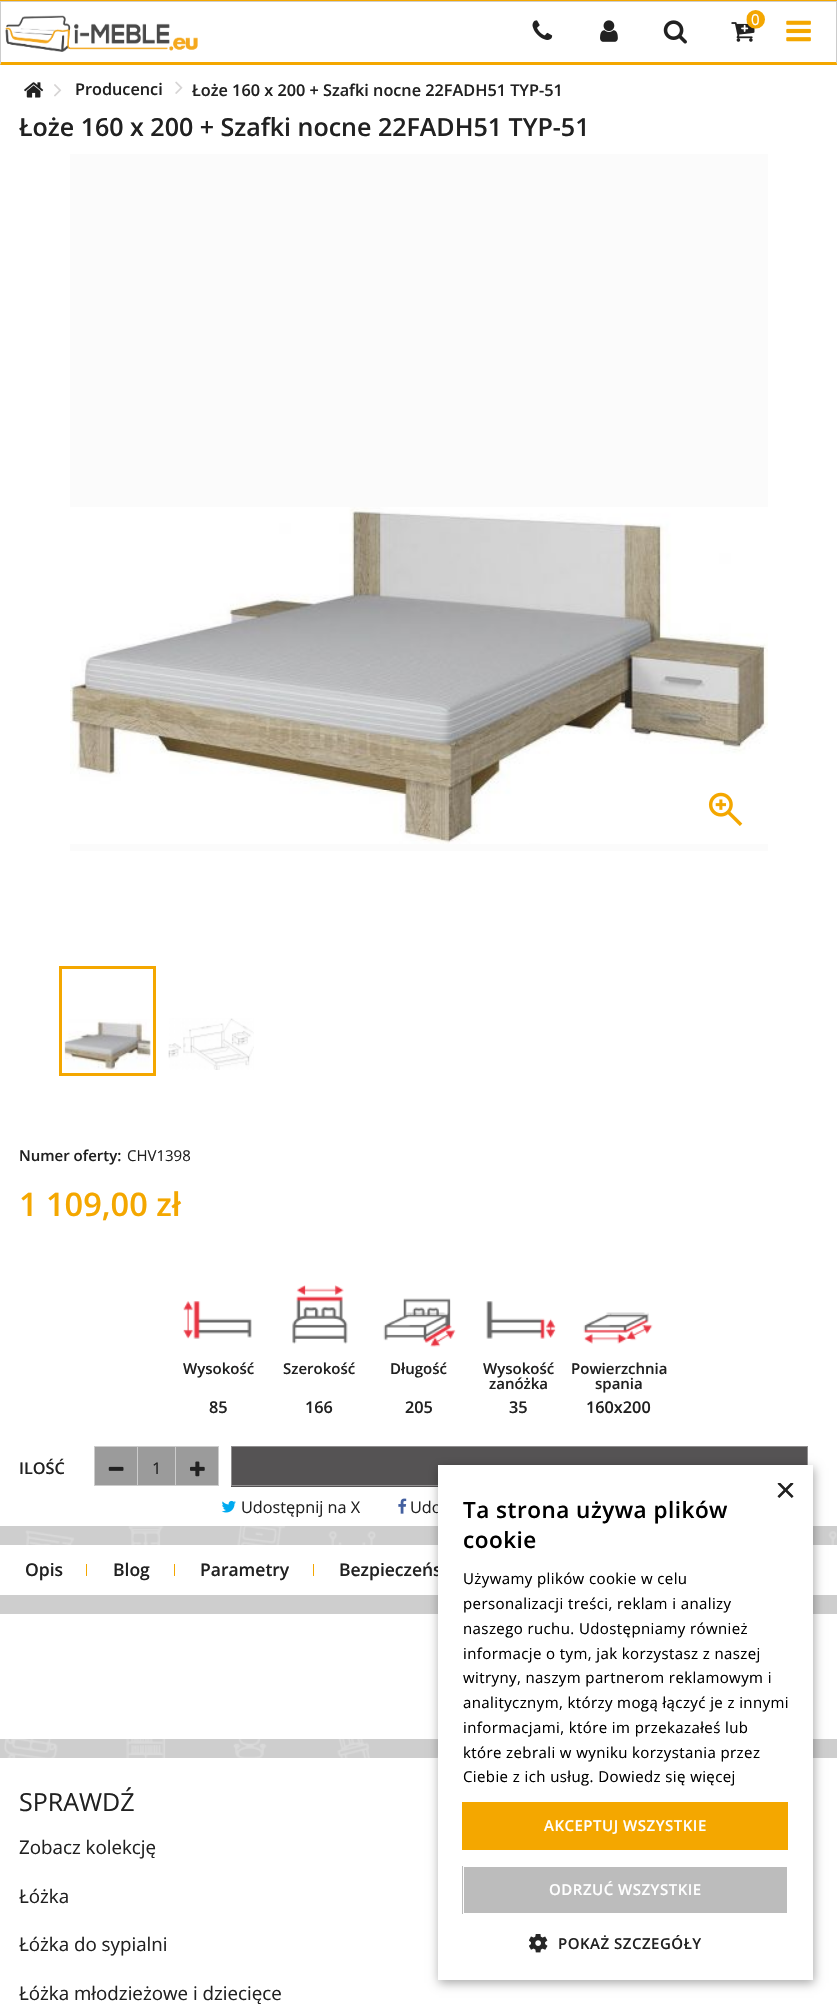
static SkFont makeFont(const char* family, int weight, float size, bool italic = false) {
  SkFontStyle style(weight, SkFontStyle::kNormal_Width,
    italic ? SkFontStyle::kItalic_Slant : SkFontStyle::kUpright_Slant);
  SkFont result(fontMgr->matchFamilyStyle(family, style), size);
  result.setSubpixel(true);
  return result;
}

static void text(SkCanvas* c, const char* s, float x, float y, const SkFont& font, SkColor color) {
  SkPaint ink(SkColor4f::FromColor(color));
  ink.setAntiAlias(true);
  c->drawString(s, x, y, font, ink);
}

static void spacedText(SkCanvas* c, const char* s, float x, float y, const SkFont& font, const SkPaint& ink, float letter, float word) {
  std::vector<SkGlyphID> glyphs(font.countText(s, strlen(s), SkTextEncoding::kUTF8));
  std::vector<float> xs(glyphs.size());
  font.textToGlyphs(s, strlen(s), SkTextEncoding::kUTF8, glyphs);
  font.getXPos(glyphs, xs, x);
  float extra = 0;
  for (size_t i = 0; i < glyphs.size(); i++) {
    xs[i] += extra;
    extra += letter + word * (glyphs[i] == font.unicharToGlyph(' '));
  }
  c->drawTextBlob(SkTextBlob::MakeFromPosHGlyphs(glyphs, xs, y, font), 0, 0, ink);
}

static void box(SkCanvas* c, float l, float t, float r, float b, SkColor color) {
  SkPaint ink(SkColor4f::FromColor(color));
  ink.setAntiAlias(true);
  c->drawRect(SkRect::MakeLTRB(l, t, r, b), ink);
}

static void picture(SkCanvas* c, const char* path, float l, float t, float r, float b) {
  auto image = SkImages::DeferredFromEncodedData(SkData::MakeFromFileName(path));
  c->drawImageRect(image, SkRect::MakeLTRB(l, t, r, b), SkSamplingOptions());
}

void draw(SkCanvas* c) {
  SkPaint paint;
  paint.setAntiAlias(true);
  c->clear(0xffcecece);
  picture(c, "img_01.png", 4, 1526, 837, 1758);
  box(c, 0, 0, 837, 1, 0xfff4a700);
  box(c, 0, 2, 837, 1526, 0xffffffff);
  paint.setColor(0xffcccccc);
  c->drawPath(SkPathBuilder().moveTo(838, 1).lineTo(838, 65).lineTo(836, 62).lineTo(836, 2).close().detach(), paint);
  paint.setColor(0xfff4a700);
  c->drawPath(SkPathBuilder().moveTo(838, 65).lineTo(0, 65).lineTo(1, 62).lineTo(836, 62).close().detach(), paint);
  paint.setColor(0xffcccccc);
  c->drawPath(SkPathBuilder().moveTo(0, 65).lineTo(0, 1).lineTo(1, 2).lineTo(1, 62).close().detach(), paint);
  picture(c, "img_02.png", 5, 15, 198, 52);
  picture(c, "img_03.png", 532, 20, 553, 40);
  picture(c, "img_04.png", 600, 20, 618, 42);
  picture(c, "img_05.png", 663, 20, 687, 44);
  picture(c, "img_07.png", 731, 22, 755, 42);
  picture(c, "img_06.png", 746, 10, 765, 29);
  SkFont face1 = makeFont("Open Sans", 400, 15);
  text(c, "0", 751, 25, face1, 0xffffffff);
  picture(c, "img_08.png", 786, 20, 811, 42);
  picture(c, "img_09.png", 24, 82, 44, 98);
  picture(c, "img_10.png", 54, 84, 62, 97);
  SkFont face2 = makeFont("Open Sans", 600, 16.25f);
  text(c, "Producenci", 75, 95, face2, 0xff212121);
  picture(c, "img_11.png", 175, 81, 183, 94);
  text(c, "Łoże 160 x 200 + Szafki nocne 22FADH51 TYP-51", 192, 96, face2, 0xff212121);
  SkFont face3 = makeFont("Open Sans", 600, 25);
  text(c, "Łoże 160 x 200 + Szafki nocne 22FADH51 TYP-51", 19, 136, face3, 0xff212121);
  box(c, 70, 154, 768, 851, 0xfffbfbfb);
  picture(c, "img_12.png", 70, 507, 768, 844);
  picture(c, "img_13.png", 708, 792, 743, 826);
  paint.setStyle(SkPaint::kStroke_Style);
  paint.setStrokeWidth(3);
  paint.setColor(0xfff4a700);
  c->drawRect(SkRect::MakeLTRB(60.5f, 967.5f, 154.5f, 1074.5f), paint);
  picture(c, "img_14.png", 64, 1019, 151, 1070);
  picture(c, "img_15.png", 168, 1018, 254, 1070);
  SkFont face4 = makeFont("Open Sans", 600, 15);
  text(c, "Numer oferty:", 19, 1161, face4, 0xff212121);
  text(c, "CHV1398", 127, 1161, face1, 0xff212121);
  SkFont face5 = makeFont("Open Sans", 600, 32.5f);
  text(c, "1 109,00 zł", 19, 1216, face5, 0xfff4a700);
  picture(c, "img_16.png", 183, 1301, 252, 1339);
  text(c, "Wysokość", 183, 1374, face4, 0xff212121);
  text(c, "85", 209, 1413, face2, 0xff212121);
  picture(c, "img_17.png", 292, 1285, 348, 1344);
  text(c, "Szerokość", 283, 1374, face4, 0xff212121);
  text(c, "166", 305, 1413, face2, 0xff212121);
  picture(c, "img_18.png", 383, 1298, 456, 1347);
  text(c, "Długość", 390, 1374, face4, 0xff212121);
  text(c, "205", 405, 1413, face2, 0xff212121);
  picture(c, "img_19.png", 486, 1301, 556, 1339);
  text(c, "Wysokość", 483, 1374, face4, 0xff212121);
  text(c, "zanóżka", 489, 1389, face4, 0xff212121);
  text(c, "35", 509, 1413, face2, 0xff212121);
  picture(c, "img_20.png", 583, 1312, 653, 1344);
  text(c, "Powierzchnia", 571, 1374, face4, 0xff212121);
  text(c, "spania", 595, 1389, face4, 0xff212121);
  text(c, "160x200", 586, 1413, face2, 0xff212121);
  text(c, "ILOŚĆ", 19, 1474, face2, 0xff212121);
  paint.setStyle(SkPaint::kFill_Style);
  paint.setColor(0xff9b9b9b);
  c->drawRect(SkRect::MakeLTRB(94.5f, 1446.5f, 137.5f, 1485.5f), paint);
  paint.setStyle(SkPaint::kStroke_Style);
  paint.setStrokeWidth(1);
  paint.setColor(0xffcccccc);
  c->drawRect(SkRect::MakeLTRB(94.5f, 1446.5f, 137.5f, 1485.5f), paint);
  picture(c, "img_21.png", 108, 1466, 124, 1471);
  box(c, 138, 1447, 175, 1485, 0xff9b9b9b);
  box(c, 138, 1446, 175, 1447, 0xffcccccc);
  box(c, 138, 1485, 175, 1486, 0xffcccccc);
  SkFont face6 = makeFont("Open Sans", 400, 16.25f);
  text(c, "1", 152, 1474, face6, 0xff212121);
  paint.setStyle(SkPaint::kFill_Style);
  paint.setColor(0xff9b9b9b);
  c->drawRect(SkRect::MakeLTRB(175.5f, 1446.5f, 218.5f, 1485.5f), paint);
  paint.setStyle(SkPaint::kStroke_Style);
  paint.setColor(0xffcccccc);
  c->drawRect(SkRect::MakeLTRB(175.5f, 1446.5f, 218.5f, 1485.5f), paint);
  picture(c, "img_22.png", 190, 1461, 205, 1477);
  box(c, 231, 1447, 807, 1487, 0xff555354);
  paint.setColor(0xff918f90);
  c->drawRect(SkRect::MakeLTRB(231.5f, 1446.5f, 807.5f, 1485.5f), paint);
  picture(c, "img_23.png", 221, 1500, 236, 1513);
  text(c, "Udostępnij na X", 241, 1513, face6, 0xff212121);
  picture(c, "img_24.png", 398, 1498, 407, 1514);
  text(c, "Udo", 410, 1513, face6, 0xff212121);
  box(c, 0, 1545, 837, 1595, 0xffffffff);
  box(c, 86, 1564, 87, 1576, 0xfff4a700);
  SkFont face7 = makeFont("Open Sans", 600, 17.5f);
  text(c, "Opis", 25, 1576, face7, 0xff212121);
  box(c, 174, 1564, 175, 1576, 0xfff4a700);
  text(c, "Blog", 113, 1576, face7, 0xff212121);
  box(c, 313, 1564, 314, 1576, 0xfff4a700);
  text(c, "Parametry", 200, 1576, face7, 0xff212121);
  text(c, "Bezpieczeńs", 339, 1576, face7, 0xff212121);
  box(c, 0, 1614, 837, 1739, 0xffffffff);
  box(c, 0, 1758, 837, 2004, 0xffffffff);
  SkFont face8 = makeFont("Open Sans", 400, 25);
  text(c, "SPRAWDŹ", 19, 1811, face8, 0xff212121);
  SkFont face9 = makeFont("Open Sans", 400, 18.75f);
  text(c, "Zobacz kolekcję", 19, 1854, face9, 0xff212121);
  text(c, "Łóżka", 19, 1903, face9, 0xff212121);
  text(c, "Łóżka do sypialni", 19, 1951, face9, 0xff212121);
  text(c, "Łóżka młodzieżowe i dziecięce", 19, 2000, face9, 0xff212121);
  paint.setStyle(SkPaint::kFill_Style);
  paint.setColor(0x59000000);
  paint.setMaskFilter(SkMaskFilter::MakeBlur(kNormal_SkBlurStyle, 5));
  c->drawRect(SkRect::MakeLTRB(439, 1468, 814, 1983), paint);
  paint.setMaskFilter(nullptr);
  box(c, 438, 1465, 813, 1980, 0xffffffff);
  c->save();
  c->clipRect(SkRect::MakeLTRB(775, 1483, 794, 1501));
  SkFont face10 = makeFont("Liberation Sans", 400, 36);
  text(c, "×", 775, 1502, face10, 0xff212121);
  c->restore();
  SkFont face11 = makeFont("Open Sans", 600, 22.5f);
  paint.setColor(0xff000000);
  spacedText(c, "Ta strona używa plików", 463, 1518, face11, paint, 0.5f, 0);
  spacedText(c, "cookie", 463, 1548, face11, paint, 0.5f, 0);
  spacedText(c, "Używamy plików cookie w celu", 463, 1584, face1, paint, 0.4f, 0);
  spacedText(c, "personalizacji treści, reklam i analizy", 463, 1609, face1, paint, 0.4f, 0);
  spacedText(c, "naszego ruchu. Udostępniamy również", 463, 1634, face1, paint, 0.4f, 0);
  spacedText(c, "informacje o tym, jak korzystasz z naszej", 463, 1659, face1, paint, 0.4f, 0);
  spacedText(c, "witryny, naszym partnerom reklamowym i", 463, 1683, face1, paint, 0.4f, 0);
  spacedText(c, "analitycznym, którzy mogą łączyć je z innymi", 463, 1708, face1, paint, 0.4f, 0);
  spacedText(c, "informacjami, które im przekazałeś lub", 463, 1733, face1, paint, 0.4f, 0);
  spacedText(c, "które zebrali w wyniku korzystania przez", 463, 1758, face1, paint, 0.4f, 0);
  spacedText(c, "Ciebie z ich usług. Dowiedz się więcej", 463, 1782, face1, paint, 0.4f, 0);
  box(c, 462, 1802, 788, 1850, 0xfff4a700);
  paint.setColor(0xffffffff);
  spacedText(c, "AKCEPTUJ WSZYSTKIE", 544, 1831, face4, paint, 0.5f, 0);
  box(c, 462, 1866, 787, 1914, 0xffbcbcbc);
  paint.setStyle(SkPaint::kStroke_Style);
  c->drawRect(SkRect::MakeLTRB(463.5f, 1866.5f, 787.5f, 1913.5f), paint);
  paint.setStyle(SkPaint::kFill_Style);
  spacedText(c, "ODRZUĆ WSZYSTKIE", 549, 1895, face4, paint, 0.5f, 0);
  picture(c, "img_25.png", 529, 1934, 548, 1953);
  paint.setColor(0xff212121);
  spacedText(c, "POKAŻ SZCZEGÓŁY", 558, 1949, face4, paint, 0.5f, 0);
}
